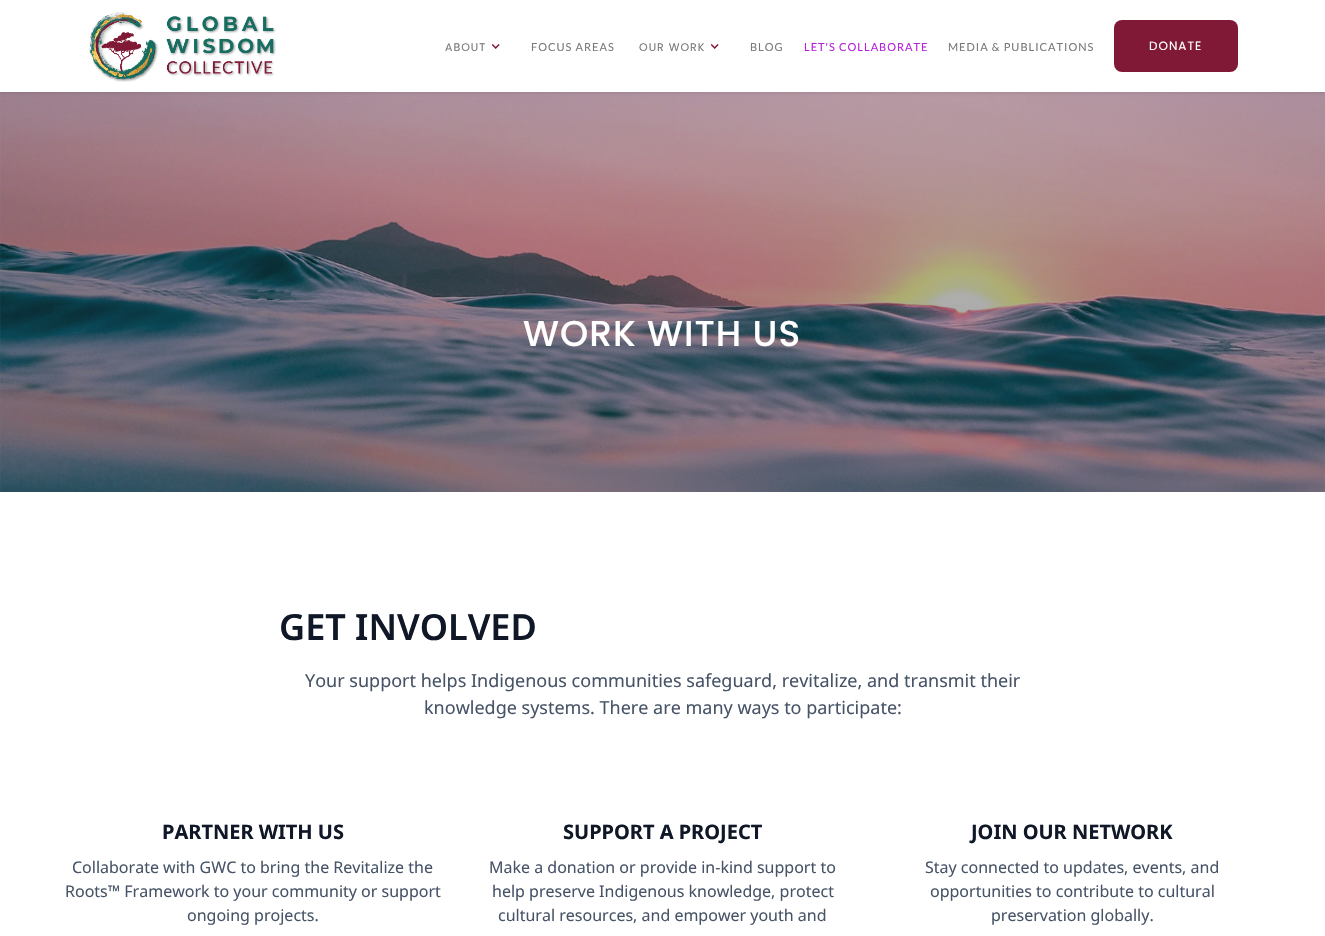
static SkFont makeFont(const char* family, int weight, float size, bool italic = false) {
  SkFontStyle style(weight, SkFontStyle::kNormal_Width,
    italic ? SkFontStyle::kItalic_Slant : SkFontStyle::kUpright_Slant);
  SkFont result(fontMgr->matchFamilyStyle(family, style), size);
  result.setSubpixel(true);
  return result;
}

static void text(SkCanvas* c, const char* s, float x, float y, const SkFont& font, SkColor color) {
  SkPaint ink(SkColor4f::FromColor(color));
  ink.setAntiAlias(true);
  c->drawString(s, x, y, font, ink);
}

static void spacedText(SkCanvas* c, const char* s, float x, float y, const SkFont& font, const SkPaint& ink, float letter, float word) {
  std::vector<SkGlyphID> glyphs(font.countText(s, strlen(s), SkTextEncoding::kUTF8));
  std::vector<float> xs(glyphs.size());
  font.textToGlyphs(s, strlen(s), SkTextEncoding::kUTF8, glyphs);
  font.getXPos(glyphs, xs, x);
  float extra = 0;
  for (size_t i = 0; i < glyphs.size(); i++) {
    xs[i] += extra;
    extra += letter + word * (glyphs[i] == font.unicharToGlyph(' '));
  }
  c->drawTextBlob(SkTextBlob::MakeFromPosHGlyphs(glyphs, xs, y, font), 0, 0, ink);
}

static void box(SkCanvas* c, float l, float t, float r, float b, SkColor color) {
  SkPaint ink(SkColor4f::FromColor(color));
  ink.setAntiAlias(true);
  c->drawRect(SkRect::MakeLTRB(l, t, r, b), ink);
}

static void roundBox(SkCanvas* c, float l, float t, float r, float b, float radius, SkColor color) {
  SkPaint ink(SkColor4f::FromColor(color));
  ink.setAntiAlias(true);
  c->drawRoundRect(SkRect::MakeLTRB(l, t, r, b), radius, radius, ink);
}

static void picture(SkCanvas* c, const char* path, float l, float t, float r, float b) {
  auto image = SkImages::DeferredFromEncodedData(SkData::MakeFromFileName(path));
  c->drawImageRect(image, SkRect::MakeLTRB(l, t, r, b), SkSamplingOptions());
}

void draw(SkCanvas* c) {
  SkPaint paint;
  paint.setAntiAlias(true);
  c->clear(0xffffffff);
  picture(c, "img_03.png", 0, 92, 1325, 492);
  paint.setColor(0x1a000000);
  paint.setMaskFilter(SkMaskFilter::MakeBlur(kNormal_SkBlurStyle, 1.5f));
  c->drawRect(SkRect::MakeLTRB(0, 1, 1325, 93), paint);
  paint.setMaskFilter(nullptr);
  box(c, 0, 0, 1325, 92, 0xffffffff);
  picture(c, "img_01.png", 89, 12, 276, 82);
  SkFont face1 = makeFont("Poppins", 400, 11);
  paint.setColor(0xff797979);
  spacedText(c, "ABOUT", 445, 51, face1, paint, 1, 0);
  picture(c, "img_02.png", 491, 44, 500, 49);
  SkFont face2 = makeFont("Lato", 400, 11);
  spacedText(c, "FOCUS AREAS", 531, 51, face2, paint, 1, 0);
  spacedText(c, "OUR WORK", 639, 51, face1, paint, 1, 0);
  picture(c, "img_02.png", 710, 44, 719, 49);
  spacedText(c, "BLOG", 750, 51, face2, paint, 1, 0);
  paint.setColor(0xffb721dc);
  spacedText(c, "LET'S COLLABORATE", 804, 51, face2, paint, 1, 0);
  paint.setColor(0xff797979);
  spacedText(c, "MEDIA & PUBLICATIONS", 948, 51, face2, paint, 1, 0);
  roundBox(c, 1114, 20, 1238, 72, 8, 0xff7f1936);
  SkFont face3 = makeFont("Poppins", 400, 12);
  paint.setColor(0xffffffff);
  spacedText(c, "DONATE", 1149, 50, face3, paint, 1, 0);
  SkFont face4 = makeFont("Poppins", 500, 36);
  spacedText(c, "WORK WITH US", 523, 346, face4, paint, 1, 0);
  SkFont face5 = makeFont("Noto Sans", 600, 36);
  text(c, "GET INVOLVED", 279, 640, face5, 0xff101828);
  SkFont face6 = makeFont("Noto Sans", 400, 18);
  text(c, "Your support helps Indigenous communities safeguard, revitalize, and transmit their", 305, 687, face6, 0xff475467);
  text(c, "knowledge systems. There are many ways to participate:", 424, 714, face6, 0xff475467);
  SkFont face7 = makeFont("Noto Sans", 700, 20);
  text(c, "PARTNER WITH US", 162, 839, face7, 0xff101828);
  SkFont face8 = makeFont("Noto Sans", 400, 16);
  text(c, "Collaborate with GWC to bring the Revitalize the", 72, 873, face8, 0xff475467);
  text(c, "Roots™ Framework to your community or support", 65, 897, face8, 0xff475467);
  text(c, "ongoing projects.", 187, 921, face8, 0xff475467);
  text(c, "SUPPORT A PROJECT", 563, 839, face7, 0xff101828);
  text(c, "Make a donation or provide in-kind support to", 489, 873, face8, 0xff475467);
  text(c, "help preserve Indigenous knowledge, protect", 492, 897, face8, 0xff475467);
  text(c, "cultural resources, and empower youth and", 498, 921, face8, 0xff475467);
  text(c, "JOIN OUR NETWORK", 971, 839, face7, 0xff101828);
  text(c, "Stay connected to updates, events, and", 925, 873, face8, 0xff475467);
  text(c, "opportunities to contribute to cultural", 930, 897, face8, 0xff475467);
  text(c, "preservation globally.", 991, 921, face8, 0xff475467);
}
